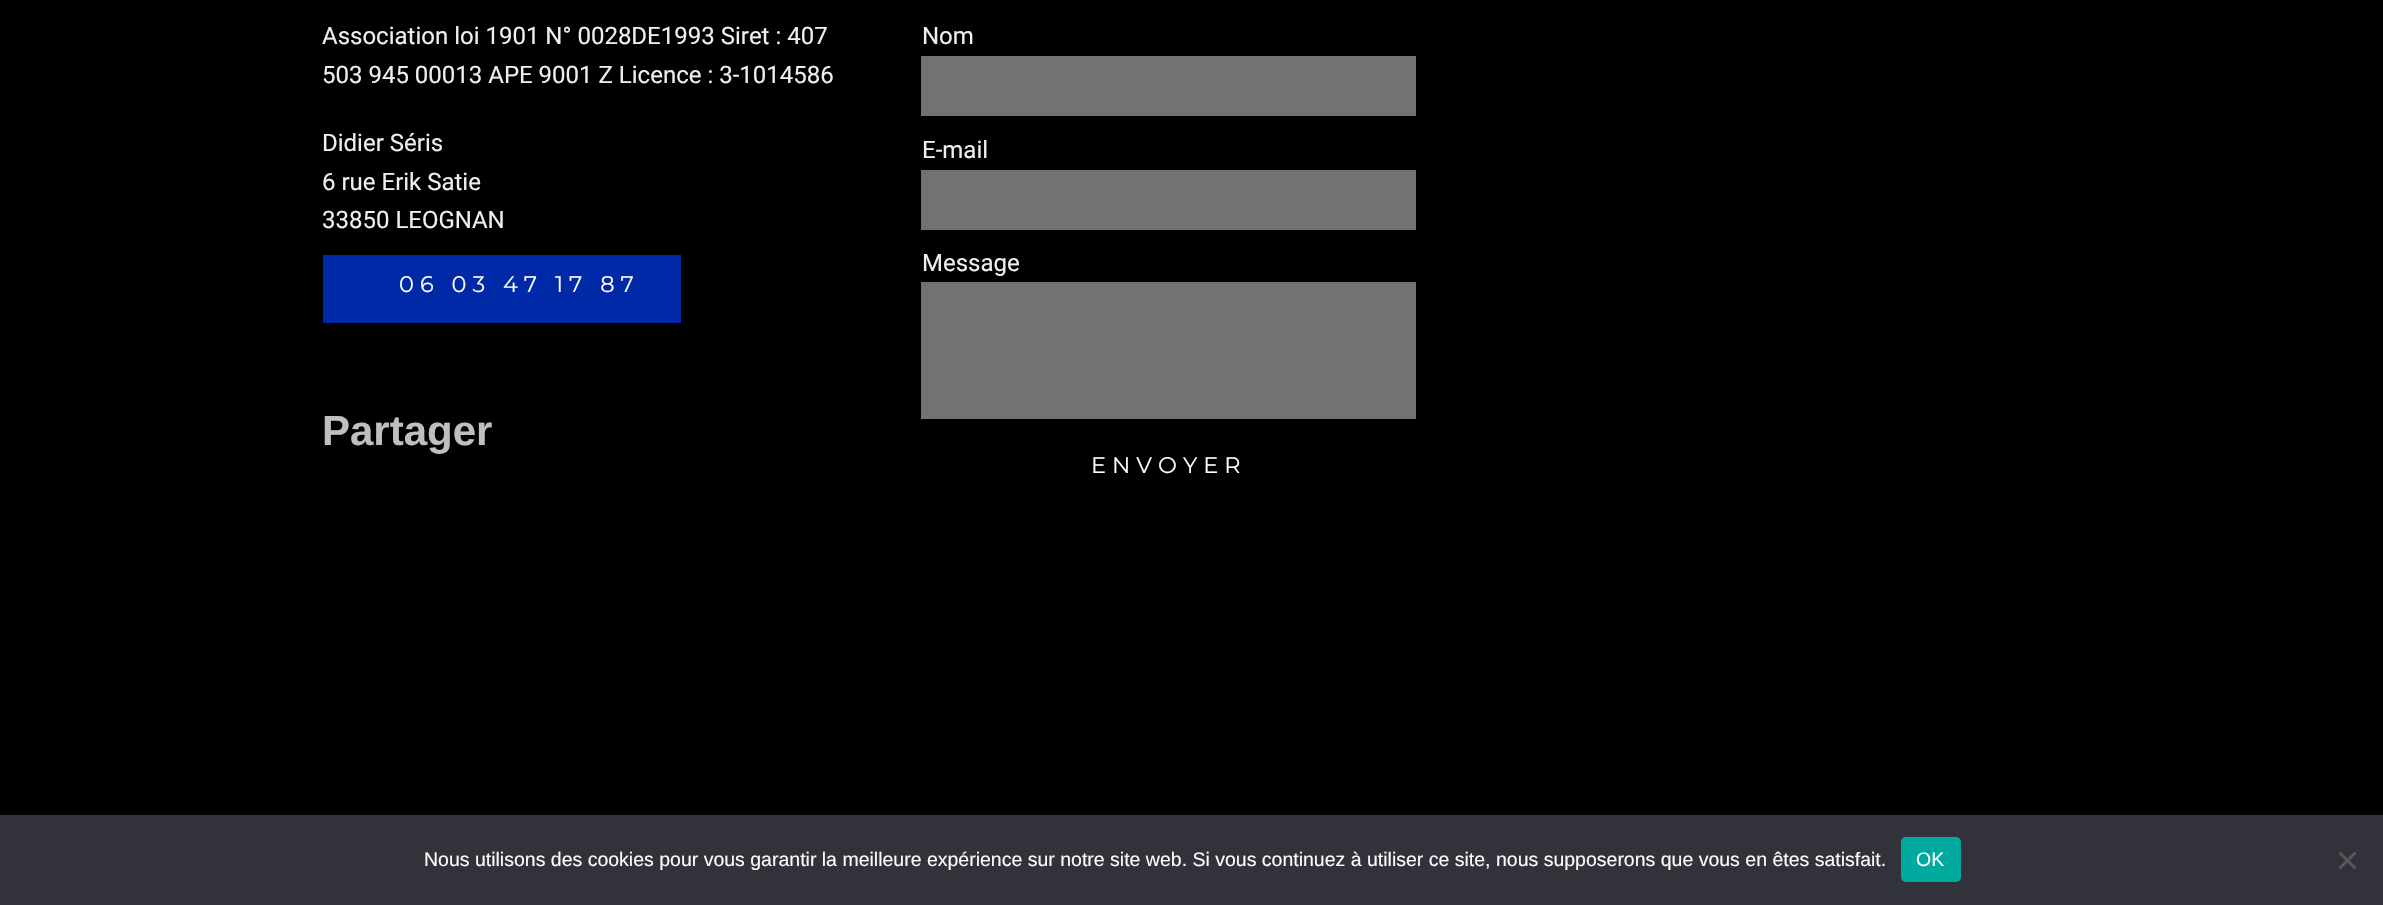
static SkFont makeFont(const char* family, int weight, float size, bool italic = false) {
  SkFontStyle style(weight, SkFontStyle::kNormal_Width,
    italic ? SkFontStyle::kItalic_Slant : SkFontStyle::kUpright_Slant);
  SkFont result(fontMgr->matchFamilyStyle(family, style), size);
  result.setSubpixel(true);
  return result;
}

static void text(SkCanvas* c, const char* s, float x, float y, const SkFont& font, SkColor color) {
  SkPaint ink(SkColor4f::FromColor(color));
  ink.setAntiAlias(true);
  c->drawString(s, x, y, font, ink);
}

static void spacedText(SkCanvas* c, const char* s, float x, float y, const SkFont& font, const SkPaint& ink, float letter, float word) {
  std::vector<SkGlyphID> glyphs(font.countText(s, strlen(s), SkTextEncoding::kUTF8));
  std::vector<float> xs(glyphs.size());
  font.textToGlyphs(s, strlen(s), SkTextEncoding::kUTF8, glyphs);
  font.getXPos(glyphs, xs, x);
  float extra = 0;
  for (size_t i = 0; i < glyphs.size(); i++) {
    xs[i] += extra;
    extra += letter + word * (glyphs[i] == font.unicharToGlyph(' '));
  }
  c->drawTextBlob(SkTextBlob::MakeFromPosHGlyphs(glyphs, xs, y, font), 0, 0, ink);
}

static void box(SkCanvas* c, float l, float t, float r, float b, SkColor color) {
  SkPaint ink(SkColor4f::FromColor(color));
  ink.setAntiAlias(true);
  c->drawRect(SkRect::MakeLTRB(l, t, r, b), ink);
}

static void roundBox(SkCanvas* c, float l, float t, float r, float b, float radius, SkColor color) {
  SkPaint ink(SkColor4f::FromColor(color));
  ink.setAntiAlias(true);
  c->drawRoundRect(SkRect::MakeLTRB(l, t, r, b), radius, radius, ink);
}

void draw(SkCanvas* c) {
  SkPaint paint;
  paint.setAntiAlias(true);
  c->clear(0xff000000);
  SkFont face1 = makeFont("Roboto", 400, 24);
  text(c, "Association loi 1901 N° 0028DE1993 Siret : 407", 322, 44, face1, 0xffefefef);
  text(c, "503 945 00013 APE 9001 Z Licence : 3-1014586", 322, 83, face1, 0xffefefef);
  text(c, "Didier Séris", 322, 151, face1, 0xffefefef);
  text(c, "6 rue Erik Satie", 322, 190, face1, 0xffefefef);
  text(c, "33850 LEOGNAN", 322, 228, face1, 0xffefefef);
  box(c, 323, 255, 681, 323, 0xff0029a8);
  SkFont face2 = makeFont("Montserrat", 400, 22.5f);
  paint.setColor(0xfffdfdfd);
  spacedText(c, "06 03 47 17 87", 399, 292, face2, paint, 6, 0);
  SkFont face3 = makeFont("Liberation Sans", 700, 42);
  text(c, "Partager", 322, 445, face3, 0xffbfbfbf);
  text(c, "Nom", 922, 44, face1, 0xffefefef);
  paint.setColor(0xff737171);
  c->drawRect(SkRect::MakeLTRB(922, 57, 1415, 115), paint);
  paint.setStyle(SkPaint::kStroke_Style);
  paint.setStrokeWidth(2);
  paint.setColor(0xff69727d);
  c->drawRect(SkRect::MakeLTRB(922, 57, 1415, 115), paint);
  text(c, "E-mail", 922, 158, face1, 0xffefefef);
  paint.setStyle(SkPaint::kFill_Style);
  paint.setColor(0xff737171);
  c->drawRect(SkRect::MakeLTRB(922, 171, 1415, 229), paint);
  paint.setStyle(SkPaint::kStroke_Style);
  paint.setColor(0xff69727d);
  c->drawRect(SkRect::MakeLTRB(922, 171, 1415, 229), paint);
  text(c, "Message", 922, 271, face1, 0xffefefef);
  paint.setStyle(SkPaint::kFill_Style);
  paint.setColor(0xff737171);
  c->drawRect(SkRect::MakeLTRB(922, 283, 1415, 418), paint);
  paint.setStyle(SkPaint::kStroke_Style);
  paint.setColor(0xff69727d);
  c->drawRect(SkRect::MakeLTRB(922, 283, 1415, 418), paint);
  paint.setStyle(SkPaint::kFill_Style);
  paint.setColor(0xfffdfdfd);
  spacedText(c, "ENVOYER", 1091, 473, face2, paint, 6, 0);
  box(c, 0, 815, 2383, 905, 0xff32323a);
  SkFont face4 = makeFont("Liberation Sans", 400, 19.5f);
  text(c, "Nous utilisons des cookies pour vous garantir la meilleure expérience sur notre site web. Si vous continuez à utiliser ce site, nous supposerons que vous en êtes satisfait.", 424, 866, face4, 0xfffdfdfd);
  roundBox(c, 1901, 837, 1961, 882, 5, 0xff00a99d);
  text(c, "OK", 1916, 866, face4, 0xfffdfdfd);
  paint.setColor(0xff59595d);
  c->drawPath(SkPathBuilder().moveTo(2354.5f, 851.5f).lineTo(2356.5f, 853.5f).lineTo(2340.5f, 869.5f).lineTo(2338.5f, 867.5f).close().detach(), paint);
  c->drawPath(SkPathBuilder().moveTo(2338.5f, 853.5f).lineTo(2340.5f, 851.5f).lineTo(2356.5f, 867.5f).lineTo(2354.5f, 869.5f).close().detach(), paint);
}
